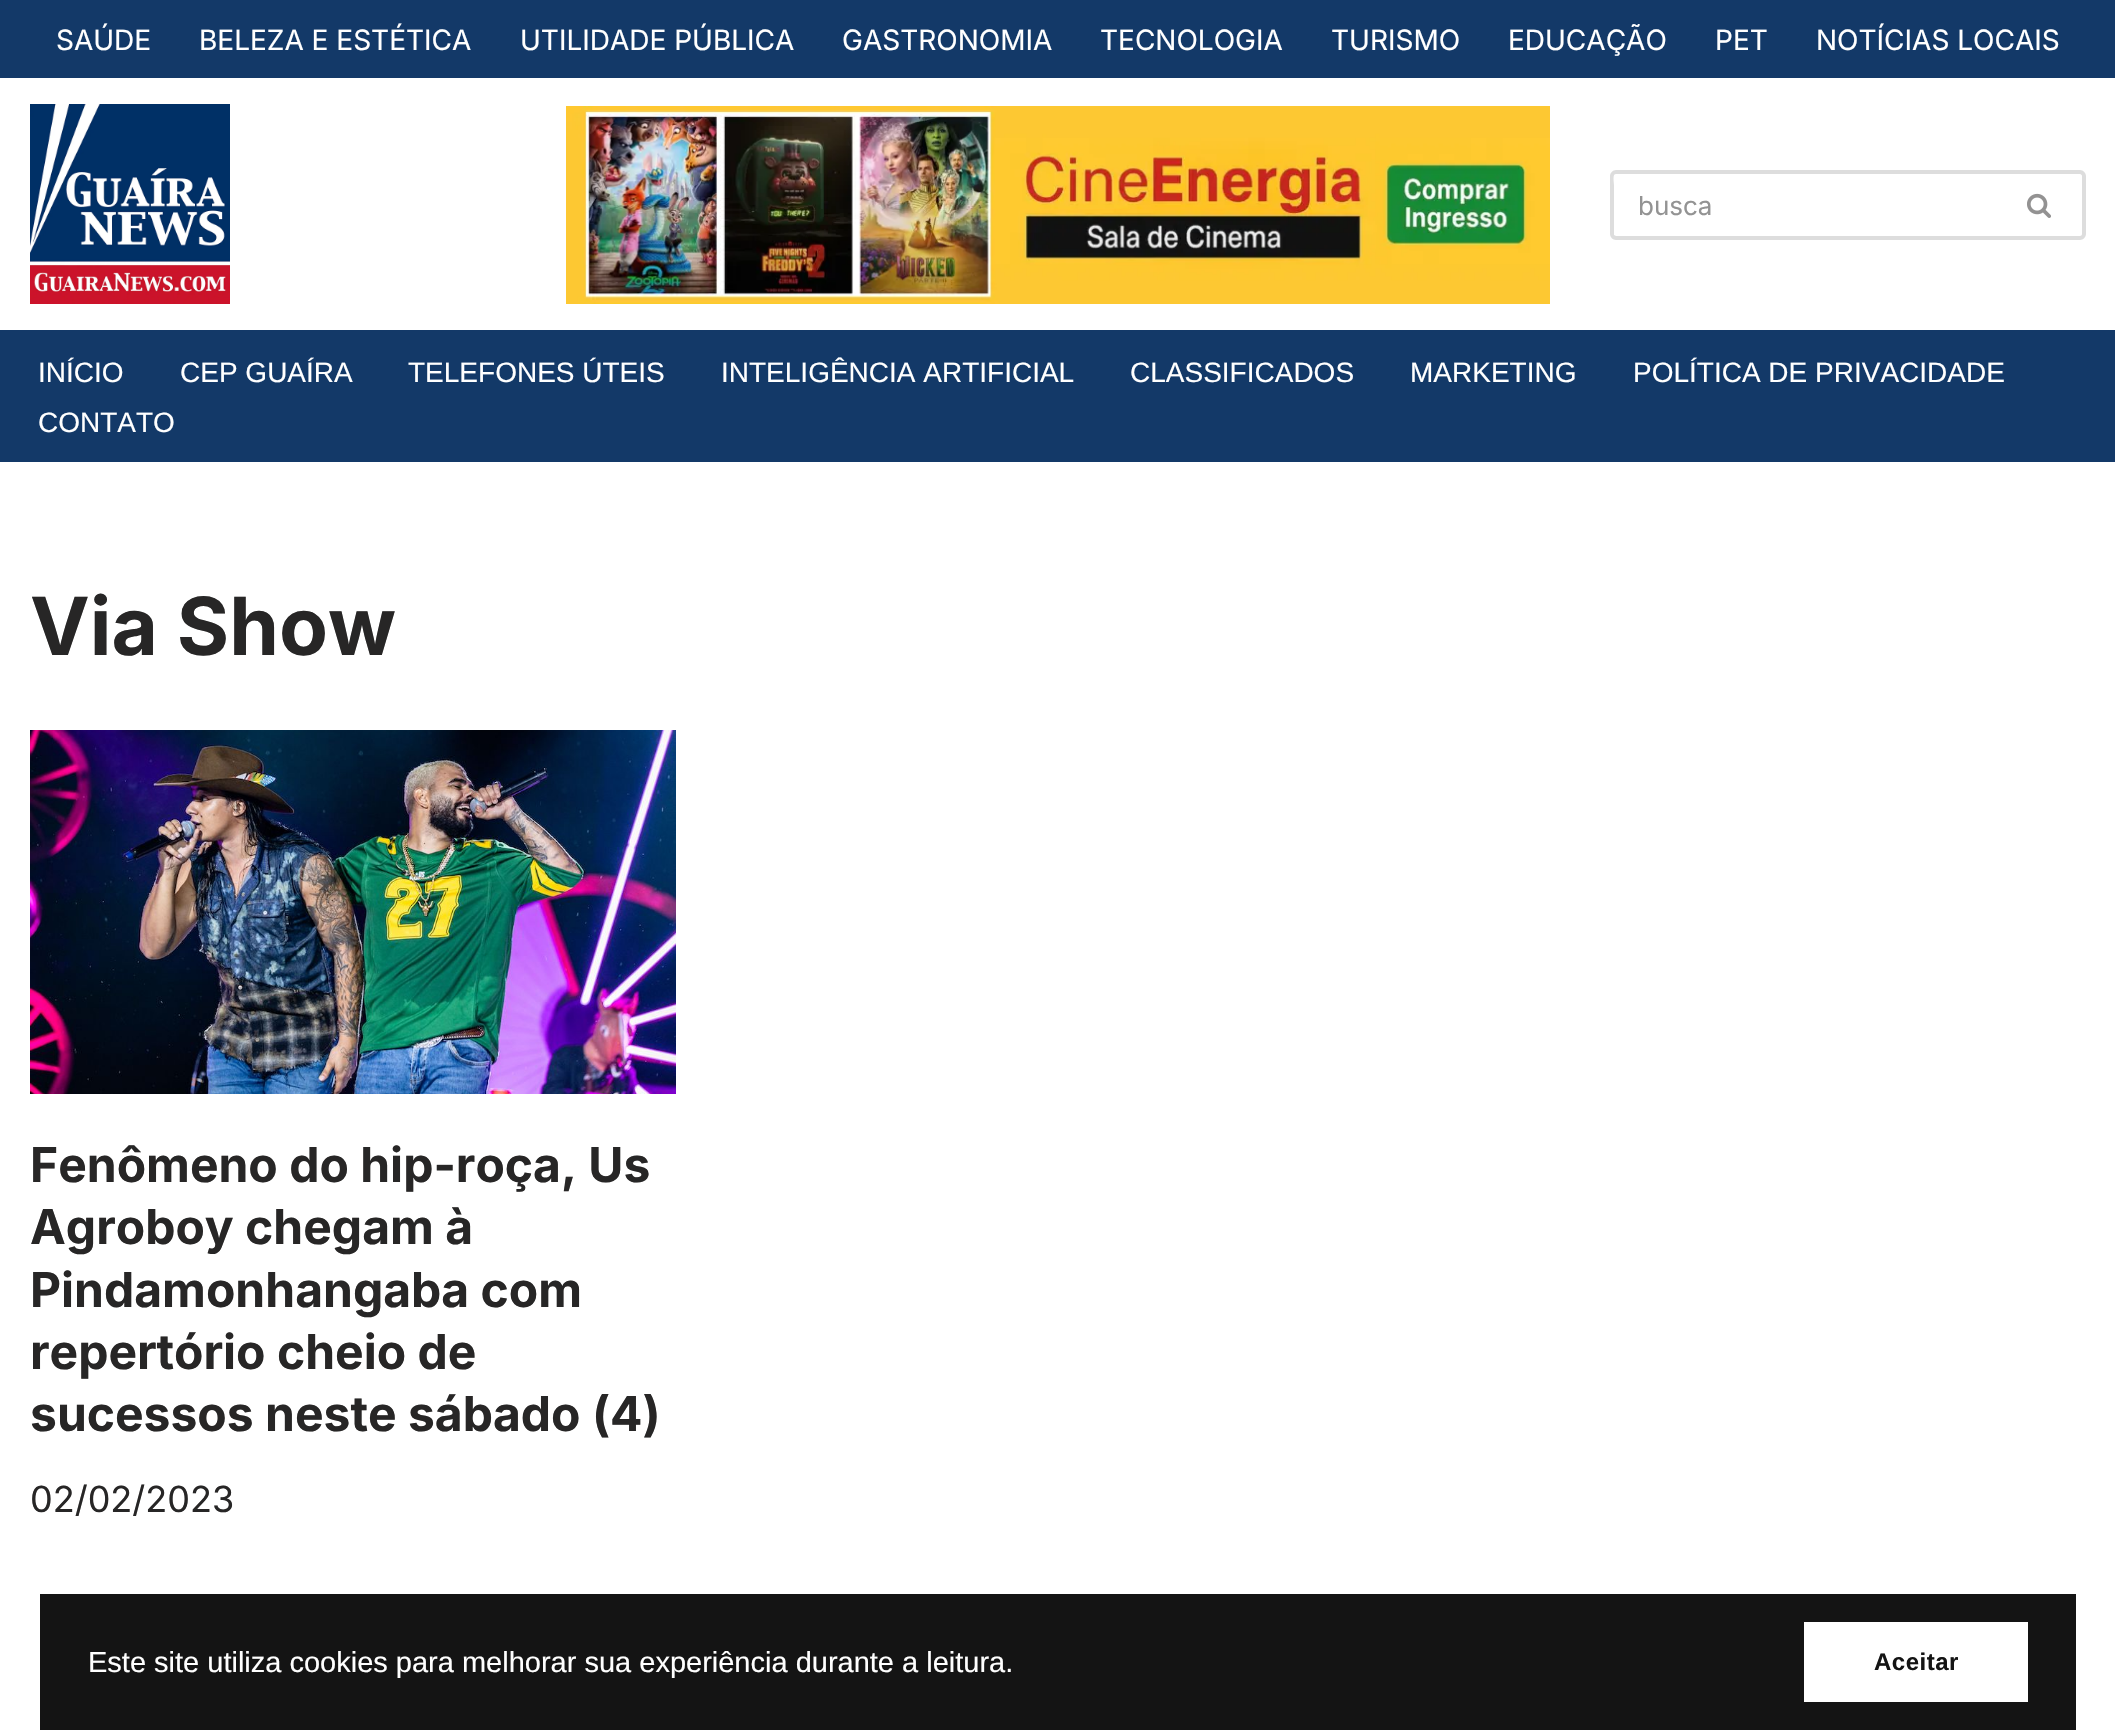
static SkFont makeFont(const char* family, int weight, float size, bool italic = false) {
  SkFontStyle style(weight, SkFontStyle::kNormal_Width,
    italic ? SkFontStyle::kItalic_Slant : SkFontStyle::kUpright_Slant);
  SkFont result(fontMgr->matchFamilyStyle(family, style), size);
  result.setSubpixel(true);
  return result;
}

static void text(SkCanvas* c, const char* s, float x, float y, const SkFont& font, SkColor color) {
  SkPaint ink(SkColor4f::FromColor(color));
  ink.setAntiAlias(true);
  c->drawString(s, x, y, font, ink);
}

static void spacedText(SkCanvas* c, const char* s, float x, float y, const SkFont& font, const SkPaint& ink, float letter, float word) {
  std::vector<SkGlyphID> glyphs(font.countText(s, strlen(s), SkTextEncoding::kUTF8));
  std::vector<float> xs(glyphs.size());
  font.textToGlyphs(s, strlen(s), SkTextEncoding::kUTF8, glyphs);
  font.getXPos(glyphs, xs, x);
  float extra = 0;
  for (size_t i = 0; i < glyphs.size(); i++) {
    xs[i] += extra;
    extra += letter + word * (glyphs[i] == font.unicharToGlyph(' '));
  }
  c->drawTextBlob(SkTextBlob::MakeFromPosHGlyphs(glyphs, xs, y, font), 0, 0, ink);
}

static void box(SkCanvas* c, float l, float t, float r, float b, SkColor color) {
  SkPaint ink(SkColor4f::FromColor(color));
  ink.setAntiAlias(true);
  c->drawRect(SkRect::MakeLTRB(l, t, r, b), ink);
}

static void picture(SkCanvas* c, const char* path, float l, float t, float r, float b) {
  auto image = SkImages::DeferredFromEncodedData(SkData::MakeFromFileName(path));
  c->drawImageRect(image, SkRect::MakeLTRB(l, t, r, b), SkSamplingOptions());
}

void draw(SkCanvas* c) {
  SkPaint paint;
  paint.setAntiAlias(true);
  c->clear(0xffffffff);
  box(c, 0, 0, 2115, 78, 0xff133968);
  SkFont face1 = makeFont("Inter", 400, 28);
  text(c, "SAÚDE", 56, 50, face1, 0xffffffff);
  text(c, "BELEZA E ESTÉTICA", 199, 50, face1, 0xffffffff);
  text(c, "UTILIDADE PÚBLICA", 520, 50, face1, 0xffffffff);
  text(c, "GASTRONOMIA", 842, 50, face1, 0xffffffff);
  text(c, "TECNOLOGIA", 1100, 50, face1, 0xffffffff);
  text(c, "TURISMO", 1331, 50, face1, 0xffffffff);
  text(c, "EDUCAÇÃO", 1508, 50, face1, 0xffffffff);
  text(c, "PET", 1715, 50, face1, 0xffffffff);
  text(c, "NOTÍCIAS LOCAIS", 1816, 50, face1, 0xffffffff);
  picture(c, "img_01.png", 30, 104, 230, 304);
  picture(c, "img_02.png", 566, 106, 1550, 304);
  paint.setColor(0xffdddddd);
  c->drawPath(SkPathBuilder(SkPathFillType::kEvenOdd).moveTo(1616, 170).lineTo(1996, 170).lineTo(1996, 240).lineTo(1616, 240).cubicTo(1613, 240, 1610, 237, 1610, 234).lineTo(1610, 176).cubicTo(1610, 173, 1613, 170, 1616, 170).close().moveTo(1616, 174).lineTo(1996, 174).lineTo(1996, 236).lineTo(1616, 236).lineTo(1614, 235).lineTo(1614, 186).cubicTo(1614, 182, 1612, 174, 1616, 174).close().detach(), paint);
  SkFont face2 = makeFont("Inter", 400, 26);
  text(c, "busca", 1638, 215, face2, 0xff939393);
  c->drawPath(SkPathBuilder(SkPathFillType::kEvenOdd).moveTo(1996, 170).lineTo(2080, 170).cubicTo(2083, 170, 2086, 173, 2086, 176).lineTo(2086, 234).cubicTo(2086, 237, 2083, 240, 2080, 240).lineTo(1996, 240).close().moveTo(1996, 174).lineTo(2080, 174).cubicTo(2081, 174, 2082, 175, 2082, 176).lineTo(2082, 234).cubicTo(2082, 235, 2081, 236, 2080, 236).lineTo(1996, 236).close().detach(), paint);
  picture(c, "img_03.png", 2027, 193, 2051, 218);
  box(c, 0, 330, 2115, 462, 0xff133968);
  SkFont face3 = makeFont("Liberation Sans", 400, 28);
  text(c, "INÍCIO", 38, 382, face3, 0xffffffff);
  text(c, "CEP GUAÍRA", 180, 382, face3, 0xffffffff);
  text(c, "TELEFONES ÚTEIS", 408, 382, face3, 0xffffffff);
  text(c, "INTELIGÊNCIA ARTIFICIAL", 721, 382, face3, 0xffffffff);
  text(c, "CLASSIFICADOS", 1130, 382, face3, 0xffffffff);
  text(c, "MARKETING", 1410, 382, face3, 0xffffffff);
  text(c, "POLÍTICA DE PRIVACIDADE", 1633, 382, face3, 0xffffffff);
  text(c, "CONTATO", 38, 432, face3, 0xffffffff);
  SkFont face4 = makeFont("Inter", 700, 80);
  text(c, "Via Show", 30, 655, face4, 0xff272626);
  picture(c, "img_04.png", 30, 730, 676, 1094);
  SkFont face5 = makeFont("Inter", 700, 48);
  text(c, "Fenômeno do hip-roça, Us", 30, 1182, face5, 0xff272626);
  text(c, "Agroboy chegam à", 30, 1244, face5, 0xff272626);
  text(c, "Pindamonhangaba com", 30, 1307, face5, 0xff272626);
  text(c, "repertório cheio de", 30, 1369, face5, 0xff272626);
  text(c, "sucessos neste sábado (4)", 30, 1431, face5, 0xff272626);
  SkFont face6 = makeFont("Inter", 400, 36);
  text(c, "02/02/2023", 30, 1512, face6, 0xff272626);
  box(c, 40, 1594, 2076, 1730, 0xff141414);
  SkFont face7 = makeFont("Liberation Sans", 400, 29);
  text(c, "Este site utiliza cookies para melhorar sua experiência durante a leitura.", 88, 1672, face7, 0xffffffff);
  box(c, 1804, 1622, 2028, 1702, 0xffffffff);
  SkFont face8 = makeFont("Liberation Sans", 700, 24);
  paint.setColor(0xff141414);
  spacedText(c, "Aceitar", 1874, 1670, face8, paint, 0.5f, 0);
}
